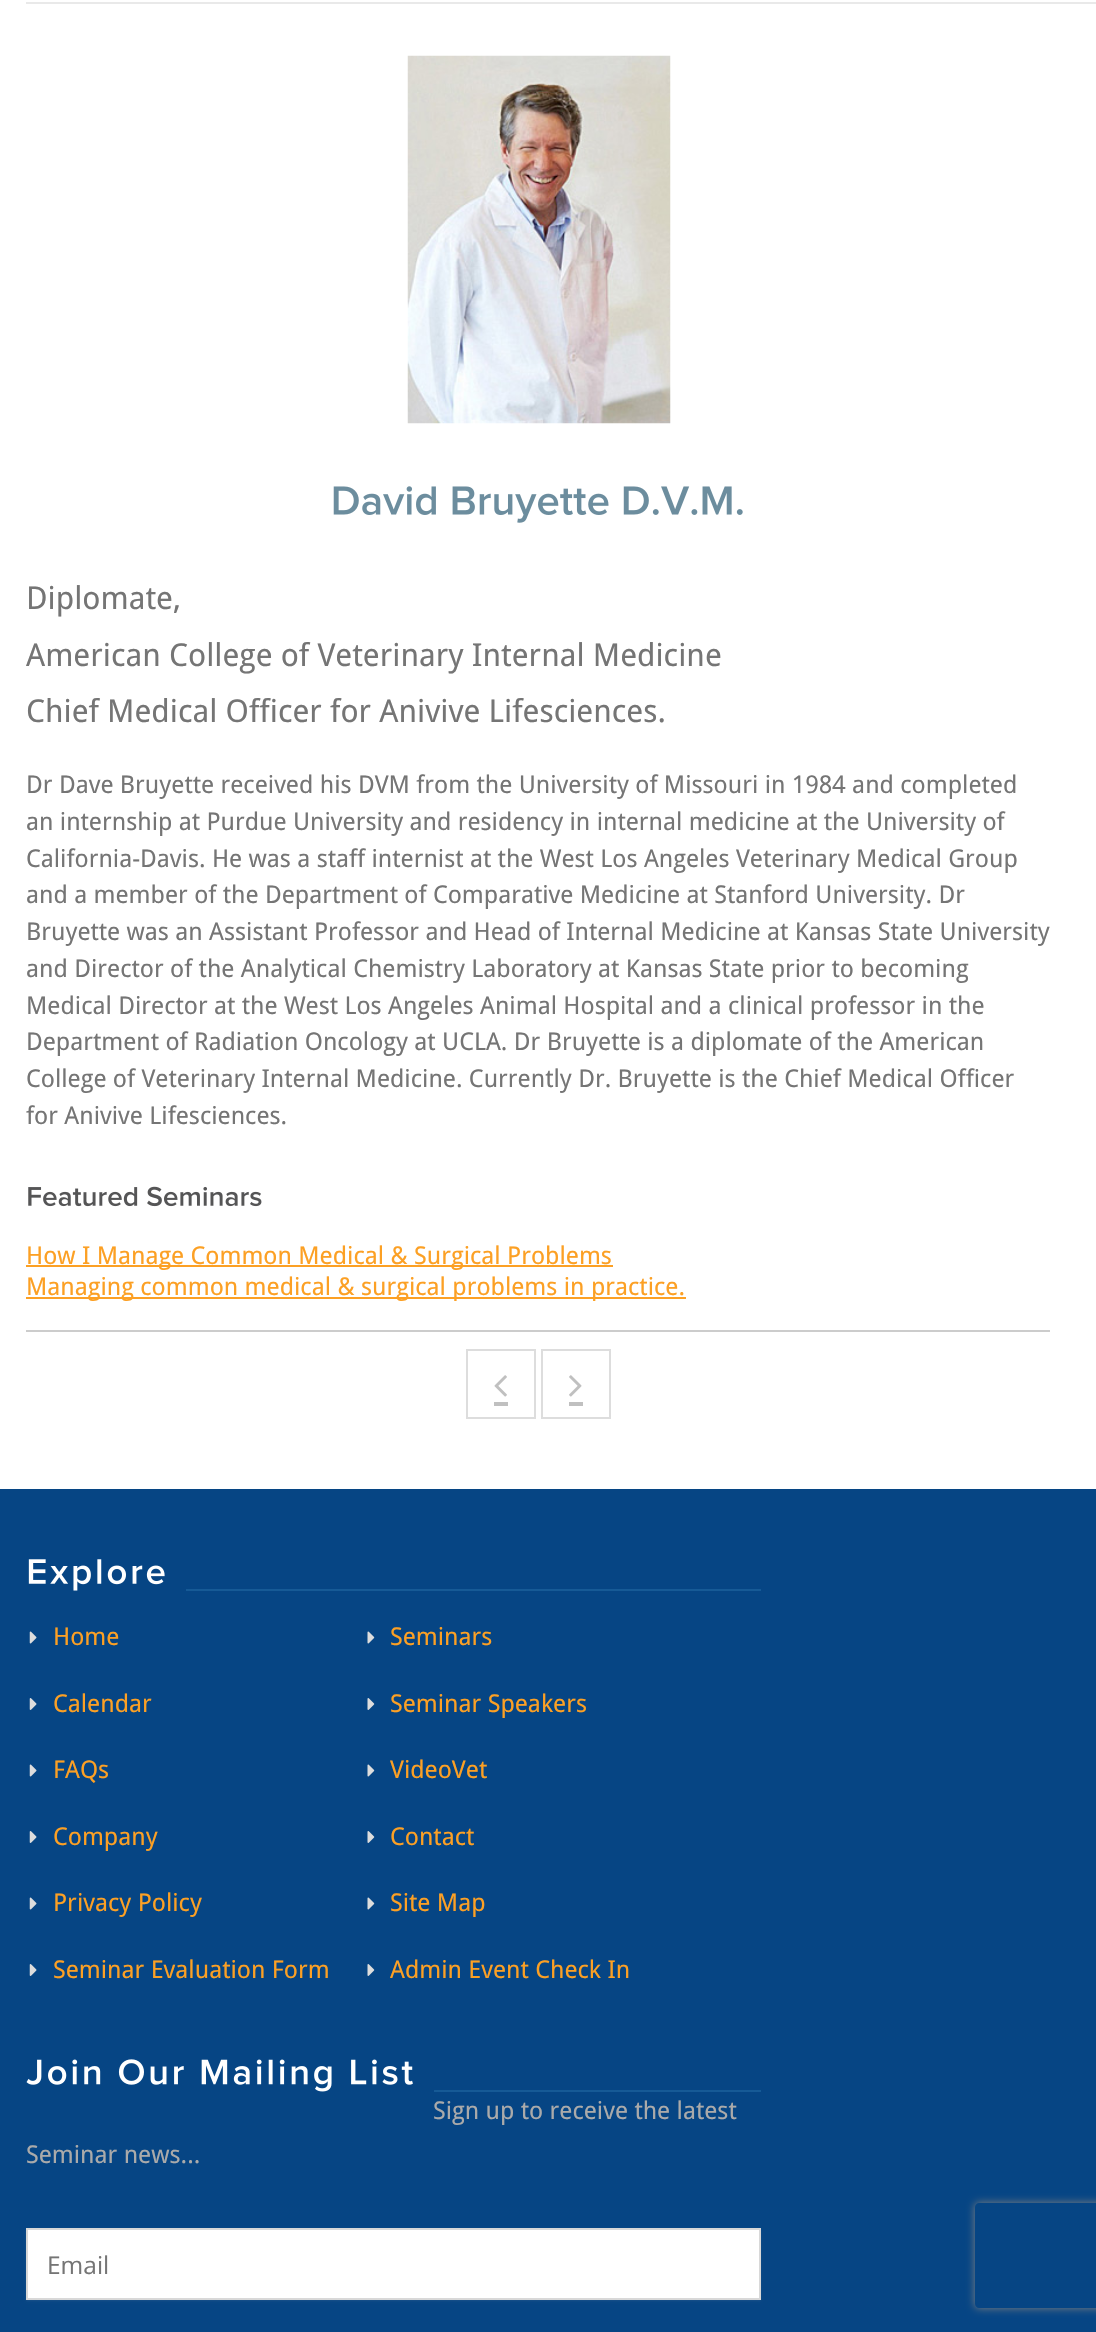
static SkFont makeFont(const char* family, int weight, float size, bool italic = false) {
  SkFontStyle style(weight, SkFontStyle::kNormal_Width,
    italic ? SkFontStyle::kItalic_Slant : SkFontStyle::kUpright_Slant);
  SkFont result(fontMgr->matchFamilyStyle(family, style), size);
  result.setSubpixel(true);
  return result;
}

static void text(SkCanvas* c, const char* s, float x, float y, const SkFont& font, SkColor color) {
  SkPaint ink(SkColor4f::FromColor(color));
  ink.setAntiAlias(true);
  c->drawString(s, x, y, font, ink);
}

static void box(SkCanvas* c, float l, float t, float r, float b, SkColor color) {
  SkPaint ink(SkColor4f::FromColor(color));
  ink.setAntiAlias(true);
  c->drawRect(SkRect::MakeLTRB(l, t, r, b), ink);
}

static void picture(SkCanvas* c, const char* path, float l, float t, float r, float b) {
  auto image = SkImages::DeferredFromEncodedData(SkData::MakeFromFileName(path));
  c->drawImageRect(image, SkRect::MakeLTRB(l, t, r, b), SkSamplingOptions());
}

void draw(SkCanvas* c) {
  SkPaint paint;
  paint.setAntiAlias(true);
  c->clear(0xffffffff);
  box(c, 26, 2, 1096, 4, 0xffe9e9e9);
  picture(c, "img_01.png", 407, 55, 671, 424);
  picture(c, "img_02.png", 333, 486, 743, 523);
  SkFont face1 = makeFont("Droid Sans", 400, 31.5f);
  text(c, "Diplomate,", 26, 609, face1, 0xff757575);
  text(c, "American College of Veterinary Internal Medicine", 26, 666, face1, 0xff757575);
  text(c, "Chief Medical Officer for Anivive Lifesciences.", 26, 722, face1, 0xff757575);
  SkFont face2 = makeFont("Droid Sans", 400, 24.5f);
  text(c, "Dr Dave Bruyette received his DVM from the University of Missouri in 1984 and completed", 26, 793, face2, 0xff757575);
  text(c, "an internship at Purdue University and residency in internal medicine at the University of", 26, 830, face2, 0xff757575);
  text(c, "California-Davis. He was a staff internist at the West Los Angeles Veterinary Medical Group", 26, 867, face2, 0xff757575);
  text(c, "and a member of the Department of Comparative Medicine at Stanford University. Dr", 26, 903, face2, 0xff757575);
  text(c, "Bruyette was an Assistant Professor and Head of Internal Medicine at Kansas State University", 26, 940, face2, 0xff757575);
  text(c, "and Director of the Analytical Chemistry Laboratory at Kansas State prior to becoming", 26, 977, face2, 0xff757575);
  text(c, "Medical Director at the West Los Angeles Animal Hospital and a clinical professor in the", 26, 1014, face2, 0xff757575);
  text(c, "Department of Radiation Oncology at UCLA. Dr Bruyette is a diplomate of the American", 26, 1050, face2, 0xff757575);
  text(c, "College of Veterinary Internal Medicine. Currently Dr. Bruyette is the Chief Medical Officer", 26, 1087, face2, 0xff757575);
  text(c, "for Anivive Lifesciences.", 26, 1124, face2, 0xff757575);
  picture(c, "img_03.png", 28, 1186, 262, 1207);
  box(c, 26, 1265, 613, 1267, 0xfffca024);
  text(c, "How I Manage Common Medical & Surgical Problems", 26, 1264, face2, 0xfffca024);
  box(c, 26, 1297, 686, 1299, 0xfffca024);
  text(c, "Managing common medical & surgical problems in practice.", 26, 1295, face2, 0xfffca024);
  box(c, 26, 1330, 1050, 1332, 0xffcccccc);
  paint.setStyle(SkPaint::kStroke_Style);
  paint.setStrokeWidth(2);
  paint.setColor(0xffdddddd);
  c->drawRect(SkRect::MakeLTRB(467, 1350, 535, 1418), paint);
  picture(c, "img_04.png", 494, 1375, 507, 1397);
  box(c, 494, 1402, 508, 1406, 0xffc0c0c0);
  c->drawRect(SkRect::MakeLTRB(542, 1350, 610, 1418), paint);
  picture(c, "img_05.png", 569, 1375, 582, 1397);
  box(c, 569, 1402, 583, 1406, 0xffc0c0c0);
  box(c, 0, 1489, 1096, 2332, 0xff064584);
  box(c, 186, 1589, 761, 1591, 0xff165a96);
  picture(c, "img_06.png", 28, 1559, 165, 1591);
  picture(c, "img_07.png", 29, 1631, 37, 1644);
  text(c, "Home", 53, 1645, face2, 0xfffca024);
  picture(c, "img_08.png", 367, 1631, 375, 1644);
  text(c, "Seminars", 390, 1645, face2, 0xfffca024);
  picture(c, "img_09.png", 29, 1698, 37, 1710);
  text(c, "Calendar", 53, 1712, face2, 0xfffca024);
  picture(c, "img_10.png", 367, 1698, 375, 1710);
  text(c, "Seminar Speakers", 390, 1712, face2, 0xfffca024);
  picture(c, "img_07.png", 29, 1764, 37, 1777);
  text(c, "FAQs", 53, 1778, face2, 0xfffca024);
  picture(c, "img_08.png", 367, 1764, 375, 1777);
  text(c, "VideoVet", 390, 1778, face2, 0xfffca024);
  picture(c, "img_09.png", 29, 1831, 37, 1843);
  text(c, "Company", 53, 1845, face2, 0xfffca024);
  picture(c, "img_10.png", 367, 1831, 375, 1843);
  text(c, "Contact", 390, 1845, face2, 0xfffca024);
  picture(c, "img_07.png", 29, 1897, 37, 1910);
  text(c, "Privacy Policy", 53, 1911, face2, 0xfffca024);
  picture(c, "img_08.png", 367, 1897, 375, 1910);
  text(c, "Site Map", 390, 1911, face2, 0xfffca024);
  picture(c, "img_09.png", 29, 1964, 37, 1976);
  text(c, "Seminar Evaluation Form", 53, 1978, face2, 0xfffca024);
  picture(c, "img_10.png", 367, 1964, 375, 1976);
  text(c, "Admin Event Check In", 390, 1978, face2, 0xfffca024);
  box(c, 434, 2090, 761, 2092, 0xff165a96);
  picture(c, "img_11.png", 26, 2059, 413, 2092);
  text(c, "Sign up to receive the latest", 433, 2119, face2, 0xffaaaaaa);
  text(c, "Seminar news...", 26, 2163, face2, 0xffaaaaaa);
  paint.setStyle(SkPaint::kFill_Style);
  paint.setColor(0x1ab4b4b4);
  paint.setMaskFilter(SkMaskFilter::MakeBlur(kNormal_SkBlurStyle, 1));
  c->drawRect(SkRect::MakeLTRB(26, 2230, 761, 2301), paint);
  paint.setMaskFilter(nullptr);
  paint.setColor(0xffffffff);
  c->drawRect(SkRect::MakeLTRB(27, 2229, 760, 2299), paint);
  paint.setStyle(SkPaint::kStroke_Style);
  paint.setColor(0xffd8d8d8);
  c->drawRect(SkRect::MakeLTRB(27, 2229, 760, 2299), paint);
  SkFont face3 = makeFont("Open Sans", 400, 24.5f);
  text(c, "Email", 47, 2274, face3, 0xff757575);
  c->save();
  c->clipPath(SkPathBuilder(SkPathFillType::kEvenOdd).moveTo(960, 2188).lineTo(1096, 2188).lineTo(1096, 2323).lineTo(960, 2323).close().moveTo(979, 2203).lineTo(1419, 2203).cubicTo(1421, 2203, 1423, 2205, 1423, 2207).lineTo(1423, 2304).cubicTo(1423, 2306, 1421, 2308, 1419, 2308).lineTo(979, 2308).cubicTo(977, 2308, 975, 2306, 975, 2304).lineTo(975, 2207).cubicTo(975, 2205, 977, 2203, 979, 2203).close().detach(), true);
  paint.setStyle(SkPaint::kFill_Style);
  paint.setColor(0xff808080);
  paint.setMaskFilter(SkMaskFilter::MakeBlur(kNormal_SkBlurStyle, 4.5f));
  c->drawRoundRect(SkRect::MakeLTRB(975, 2203, 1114, 2308), 4, 4, paint);
  paint.setMaskFilter(nullptr);
  c->restore();
}
